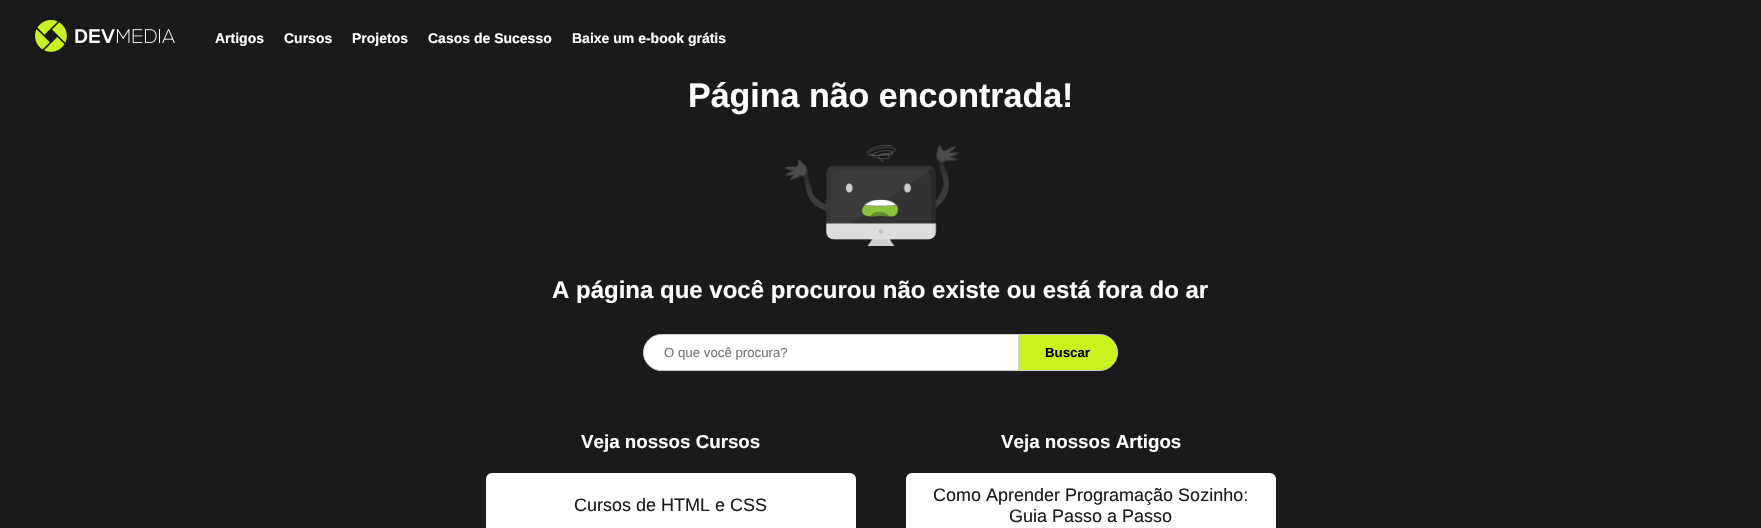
static SkFont makeFont(const char* family, int weight, float size, bool italic = false) {
  SkFontStyle style(weight, SkFontStyle::kNormal_Width,
    italic ? SkFontStyle::kItalic_Slant : SkFontStyle::kUpright_Slant);
  SkFont result(fontMgr->matchFamilyStyle(family, style), size);
  result.setSubpixel(true);
  return result;
}

static void text(SkCanvas* c, const char* s, float x, float y, const SkFont& font, SkColor color) {
  SkPaint ink(SkColor4f::FromColor(color));
  ink.setAntiAlias(true);
  c->drawString(s, x, y, font, ink);
}

static void roundBox(SkCanvas* c, float l, float t, float r, float b, float radius, SkColor color) {
  SkPaint ink(SkColor4f::FromColor(color));
  ink.setAntiAlias(true);
  c->drawRoundRect(SkRect::MakeLTRB(l, t, r, b), radius, radius, ink);
}

static void picture(SkCanvas* c, const char* path, float l, float t, float r, float b) {
  auto image = SkImages::DeferredFromEncodedData(SkData::MakeFromFileName(path));
  c->drawImageRect(image, SkRect::MakeLTRB(l, t, r, b), SkSamplingOptions());
}

void draw(SkCanvas* c) {
  SkPaint paint;
  paint.setAntiAlias(true);
  c->clear(0xff1a1a1a);
  picture(c, "img_01.png", 35, 20, 175, 52);
  SkFont face1 = makeFont("Liberation Sans", 700, 14);
  text(c, "Artigos", 215, 43, face1, 0xffffffff);
  text(c, "Cursos", 284, 43, face1, 0xffffffff);
  text(c, "Projetos", 352, 43, face1, 0xffffffff);
  text(c, "Casos de Sucesso", 428, 43, face1, 0xffffffff);
  text(c, "Baixe um e-book grátis", 572, 43, face1, 0xffffffff);
  SkFont face2 = makeFont("Liberation Sans", 700, 34);
  text(c, "Página não encontrada!", 688, 107, face2, 0xffffffff);
  picture(c, "img_02.png", 784, 145, 960, 246);
  SkFont face3 = makeFont("Liberation Sans", 700, 24);
  text(c, "A página que você procurou não existe ou está fora do ar", 552, 298, face3, 0xffffffff);
  paint.setColor(0xffffffff);
  c->drawRoundRect(SkRect::MakeLTRB(643.5f, 334.5f, 1042.5f, 370.5f), 18, 18, paint);
  paint.setStyle(SkPaint::kStroke_Style);
  paint.setStrokeWidth(1);
  paint.setColor(0xffcecece);
  c->drawRoundRect(SkRect::MakeLTRB(643.5f, 334.5f, 1042.5f, 370.5f), 18, 18, paint);
  SkFont face4 = makeFont("Liberation Sans", 400, 13.25f);
  text(c, "O que você procura?", 664, 357, face4, 0xff757575);
  paint.setStyle(SkPaint::kFill_Style);
  paint.setColor(0xffc9f31d);
  c->drawPath(SkPathBuilder().moveTo(1018.5f, 334.5f).lineTo(1099.5f, 334.5f).cubicTo(1109.5f, 334.5f, 1117.5f, 342.5f, 1117.5f, 352.5f).cubicTo(1117.5f, 362.5f, 1109.5f, 370.5f, 1099.5f, 370.5f).lineTo(1018.5f, 370.5f).close().detach(), paint);
  paint.setStyle(SkPaint::kStroke_Style);
  paint.setColor(0xffcecece);
  c->drawPath(SkPathBuilder().moveTo(1018.5f, 334.5f).lineTo(1099.5f, 334.5f).cubicTo(1109.5f, 334.5f, 1117.5f, 342.5f, 1117.5f, 352.5f).cubicTo(1117.5f, 362.5f, 1109.5f, 370.5f, 1099.5f, 370.5f).lineTo(1018.5f, 370.5f).close().detach(), paint);
  SkFont face5 = makeFont("Liberation Sans", 700, 13.25f);
  text(c, "Buscar", 1045, 357, face5, 0xff000000);
  SkFont face6 = makeFont("Liberation Sans", 700, 18.75f);
  text(c, "Veja nossos Cursos", 581, 448, face6, 0xffffffff);
  roundBox(c, 486, 473, 856, 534, 6, 0xffffffff);
  SkFont face7 = makeFont("Liberation Sans", 400, 18);
  text(c, "Cursos de HTML e CSS", 574, 511, face7, 0xff1a1a1a);
  text(c, "Veja nossos Artigos", 1001, 448, face6, 0xffffffff);
  roundBox(c, 906, 473, 1276, 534, 6, 0xffffffff);
  text(c, "Como Aprender Programação Sozinho:", 933, 501, face7, 0xff1a1a1a);
  text(c, "Guia Passo a Passo", 1009, 522, face7, 0xff1a1a1a);
}
